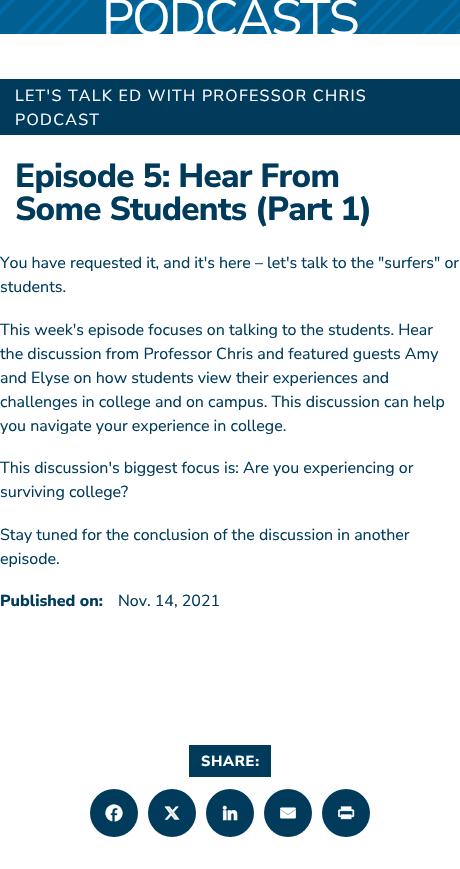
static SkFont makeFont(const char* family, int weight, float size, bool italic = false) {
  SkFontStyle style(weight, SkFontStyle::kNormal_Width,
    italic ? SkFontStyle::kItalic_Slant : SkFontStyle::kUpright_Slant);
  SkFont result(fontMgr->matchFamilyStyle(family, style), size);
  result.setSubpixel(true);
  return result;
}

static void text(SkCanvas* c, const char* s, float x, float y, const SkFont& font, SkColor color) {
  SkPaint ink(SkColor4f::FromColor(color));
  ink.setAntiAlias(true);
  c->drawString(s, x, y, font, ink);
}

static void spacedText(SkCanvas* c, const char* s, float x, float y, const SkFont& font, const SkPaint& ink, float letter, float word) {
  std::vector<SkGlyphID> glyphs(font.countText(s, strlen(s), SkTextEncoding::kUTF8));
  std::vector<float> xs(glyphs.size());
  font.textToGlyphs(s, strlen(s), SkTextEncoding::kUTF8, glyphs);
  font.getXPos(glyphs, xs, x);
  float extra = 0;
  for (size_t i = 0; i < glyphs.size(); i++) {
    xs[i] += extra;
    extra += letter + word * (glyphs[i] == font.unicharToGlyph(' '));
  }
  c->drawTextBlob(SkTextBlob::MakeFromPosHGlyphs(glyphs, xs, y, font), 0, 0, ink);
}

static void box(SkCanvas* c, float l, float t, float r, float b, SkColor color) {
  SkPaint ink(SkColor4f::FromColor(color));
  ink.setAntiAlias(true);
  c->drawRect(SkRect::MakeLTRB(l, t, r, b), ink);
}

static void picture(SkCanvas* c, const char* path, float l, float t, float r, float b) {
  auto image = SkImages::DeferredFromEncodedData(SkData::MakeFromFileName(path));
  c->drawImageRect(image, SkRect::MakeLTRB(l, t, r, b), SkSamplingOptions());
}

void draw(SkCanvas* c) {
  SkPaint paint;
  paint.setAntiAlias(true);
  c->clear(0xffffffff);
  {
    const SkColor colors[] = {0xff006ba6, 0xff006ba6, 0xff025f92, 0xff025f92, 0xff006ba6, 0xff006ba6, 0xff025f92, 0xff025f92, 0xff006ba6, 0xff006ba6, 0xff025f92, 0xff025f92, 0xff006ba6, 0xff006ba6, 0xff025f92, 0xff025f92, 0xff006ba6, 0xff006ba6, 0xff025f92, 0xff025f92, 0xff006ba6, 0xff006ba6, 0xff025f92, 0xff025f92, 0xff006ba6, 0xff006ba6, 0xff025f92, 0xff025f92, 0xff006ba6, 0xff006ba6, 0xff025f92, 0xff025f92, 0xff006ba6, 0xff006ba6, 0xff025f92, 0xff025f92, 0xff006ba6, 0xff006ba6, 0xff025f92, 0xff025f92, 0xff006ba6, 0xff006ba6, 0xff025f92, 0xff025f92, 0xff006ba6, 0xff006ba6, 0xff025f92, 0xff025f92, 0xff006ba6, 0xff006ba6, 0xff025f92, 0xff025f92, 0xff006ba6, 0xff006ba6, 0xff025f92, 0xff025f92, 0xff006ba6, 0xff006ba6, 0xff025f92, 0xff025f92, 0xff006ba6, 0xff006ba6, 0xff025f92, 0xff025f92, 0xff006ba6, 0xff006ba6, 0xff025f92, 0xff025f92, 0xff006ba6, 0xff006ba6, 0xff025f92, 0xff025f92, 0xff006ba6, 0xff006ba6, 0xff025f92, 0xff025f92, 0xff006ba6, 0xff006ba6, 0xff025f92, 0xff025f92, 0xff006ba6, 0xff006ba6, 0xff025f92, 0xff025f92, 0xff006ba6, 0xff006ba6, 0xff025f92, 0xff025f92, 0xff006ba6, 0xff006ba6, 0xff025f92, 0xff025f92, 0xff006ba6, 0xff006ba6, 0xff025f92, 0xff025f92, 0xff006ba6, 0xff006ba6, 0xff025f92, 0xff025f92, 0xff006ba6, 0xff006ba6, 0xff025f92, 0xff025f92, 0xff006ba6, 0xff006ba6, 0xff025f92, 0xff025f92, 0xff006ba6, 0xff006ba6, 0xff025f92, 0xff025f92, 0xff006ba6, 0xff006ba6, 0xff025f92, 0xff025f92, 0xff006ba6, 0xff006ba6, 0xff025f92, 0xff025f92, 0xff006ba6, 0xff006ba6, 0xff025f92, 0xff025f92};
    const float stops[] = {0, 0.01f, 0.01f, 0.03f, 0.03f, 0.04f, 0.04f, 0.06f, 0.06f, 0.07f, 0.07f, 0.1f, 0.1f, 0.1f, 0.1f, 0.13f, 0.13f, 0.14f, 0.14f, 0.16f, 0.16f, 0.17f, 0.17f, 0.19f, 0.19f, 0.2f, 0.2f, 0.23f, 0.23f, 0.23f, 0.23f, 0.26f, 0.26f, 0.27f, 0.27f, 0.29f, 0.29f, 0.3f, 0.3f, 0.32f, 0.32f, 0.33f, 0.33f, 0.35f, 0.35f, 0.36f, 0.36f, 0.39f, 0.39f, 0.39f, 0.39f, 0.42f, 0.42f, 0.43f, 0.43f, 0.45f, 0.45f, 0.46f, 0.46f, 0.48f, 0.48f, 0.49f, 0.49f, 0.52f, 0.52f, 0.52f, 0.52f, 0.55f, 0.55f, 0.56f, 0.56f, 0.58f, 0.58f, 0.59f, 0.59f, 0.61f, 0.61f, 0.62f, 0.62f, 0.65f, 0.65f, 0.65f, 0.65f, 0.68f, 0.68f, 0.68f, 0.68f, 0.71f, 0.71f, 0.72f, 0.72f, 0.74f, 0.74f, 0.75f, 0.75f, 0.77f, 0.77f, 0.78f, 0.78f, 0.81f, 0.81f, 0.81f, 0.81f, 0.84f, 0.84f, 0.85f, 0.85f, 0.87f, 0.87f, 0.88f, 0.88f, 0.9f, 0.9f, 0.91f, 0.91f, 0.94f, 0.94f, 0.94f, 0.94f, 0.97f, 0.97f, 0.98f, 0.98f, 1};
    const SkPoint ends[] = {{371, 123}, {86, -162}};
    paint.setShader(SkGradientShader::MakeLinear(ends, colors, stops, 124, SkTileMode::kClamp));
    paint.setAlpha(255);
  }
  c->drawRect(SkRect::MakeLTRB(0, 0, 460, 34), paint);
  SkFont face1 = makeFont("Nunito Sans", 400, 50.5f);
  paint.setShader(nullptr);
  paint.setColor(0xffffffff);
  spacedText(c, "PODCASTS", 102, 35, face1, paint, -2, 0);
  box(c, 0, 79, 460, 135, 0xff003b5c);
  SkFont face2 = makeFont("Nunito Sans", 400, 16);
  spacedText(c, "LET'S TALK ED WITH PROFESSOR CHRIS", 15, 101, face2, paint, 1.3f, 0);
  spacedText(c, "PODCAST", 15, 125, face2, paint, 1.3f, 0);
  SkFont face3 = makeFont("Nunito Sans", 800, 33.25f);
  paint.setColor(0xff003b5c);
  spacedText(c, "Episode 5: Hear From", 15, 187, face3, paint, -0.7f, 0);
  spacedText(c, "Some Students (Part 1)", 15, 220, face3, paint, -0.7f, 0);
  text(c, "You have requested it, and it's here – let's talk to the \"surfers\" or", 0, 268, face2, 0xff003b5c);
  text(c, "students.", 0, 292, face2, 0xff003b5c);
  text(c, "This week's episode focuses on talking to the students. Hear", 0, 335, face2, 0xff003b5c);
  text(c, "the discussion from Professor Chris and featured guests Amy", 0, 359, face2, 0xff003b5c);
  text(c, "and Elyse on how students view their experiences and", 0, 383, face2, 0xff003b5c);
  text(c, "challenges in college and on campus. This discussion can help", 0, 407, face2, 0xff003b5c);
  text(c, "you navigate your experience in college.", 0, 431, face2, 0xff003b5c);
  text(c, "This discussion's biggest focus is: Are you experiencing or", 0, 473, face2, 0xff003b5c);
  text(c, "surviving college?", 0, 497, face2, 0xff003b5c);
  text(c, "Stay tuned for the conclusion of the discussion in another", 0, 540, face2, 0xff003b5c);
  text(c, "episode.", 0, 564, face2, 0xff003b5c);
  SkFont face4 = makeFont("Nunito Sans", 800, 16);
  text(c, "Published on:", 0, 606, face4, 0xff003b5c);
  text(c, "Nov. 14, 2021", 118, 606, face2, 0xff003b5c);
  box(c, 189, 745, 271, 777, 0xff003b5c);
  SkFont face5 = makeFont("Nunito Sans", 800, 14.5f);
  paint.setColor(0xffffffff);
  spacedText(c, "SHARE:", 201, 766, face5, paint, 0.75f, 0);
  paint.setColor(0xff003b5c);
  c->drawCircle(114, 813, 24, paint);
  picture(c, "img_01.png", 105, 804, 123, 822);
  c->drawCircle(172, 813, 24, paint);
  picture(c, "img_02.png", 164, 806, 180, 820);
  c->drawCircle(230, 813, 24, paint);
  picture(c, "img_03.png", 222, 805, 238, 821);
  c->drawCircle(288, 813, 24, paint);
  picture(c, "img_04.png", 280, 807, 296, 819);
  c->drawCircle(346, 813, 24, paint);
  picture(c, "img_05.png", 338, 806, 355, 820);
}
